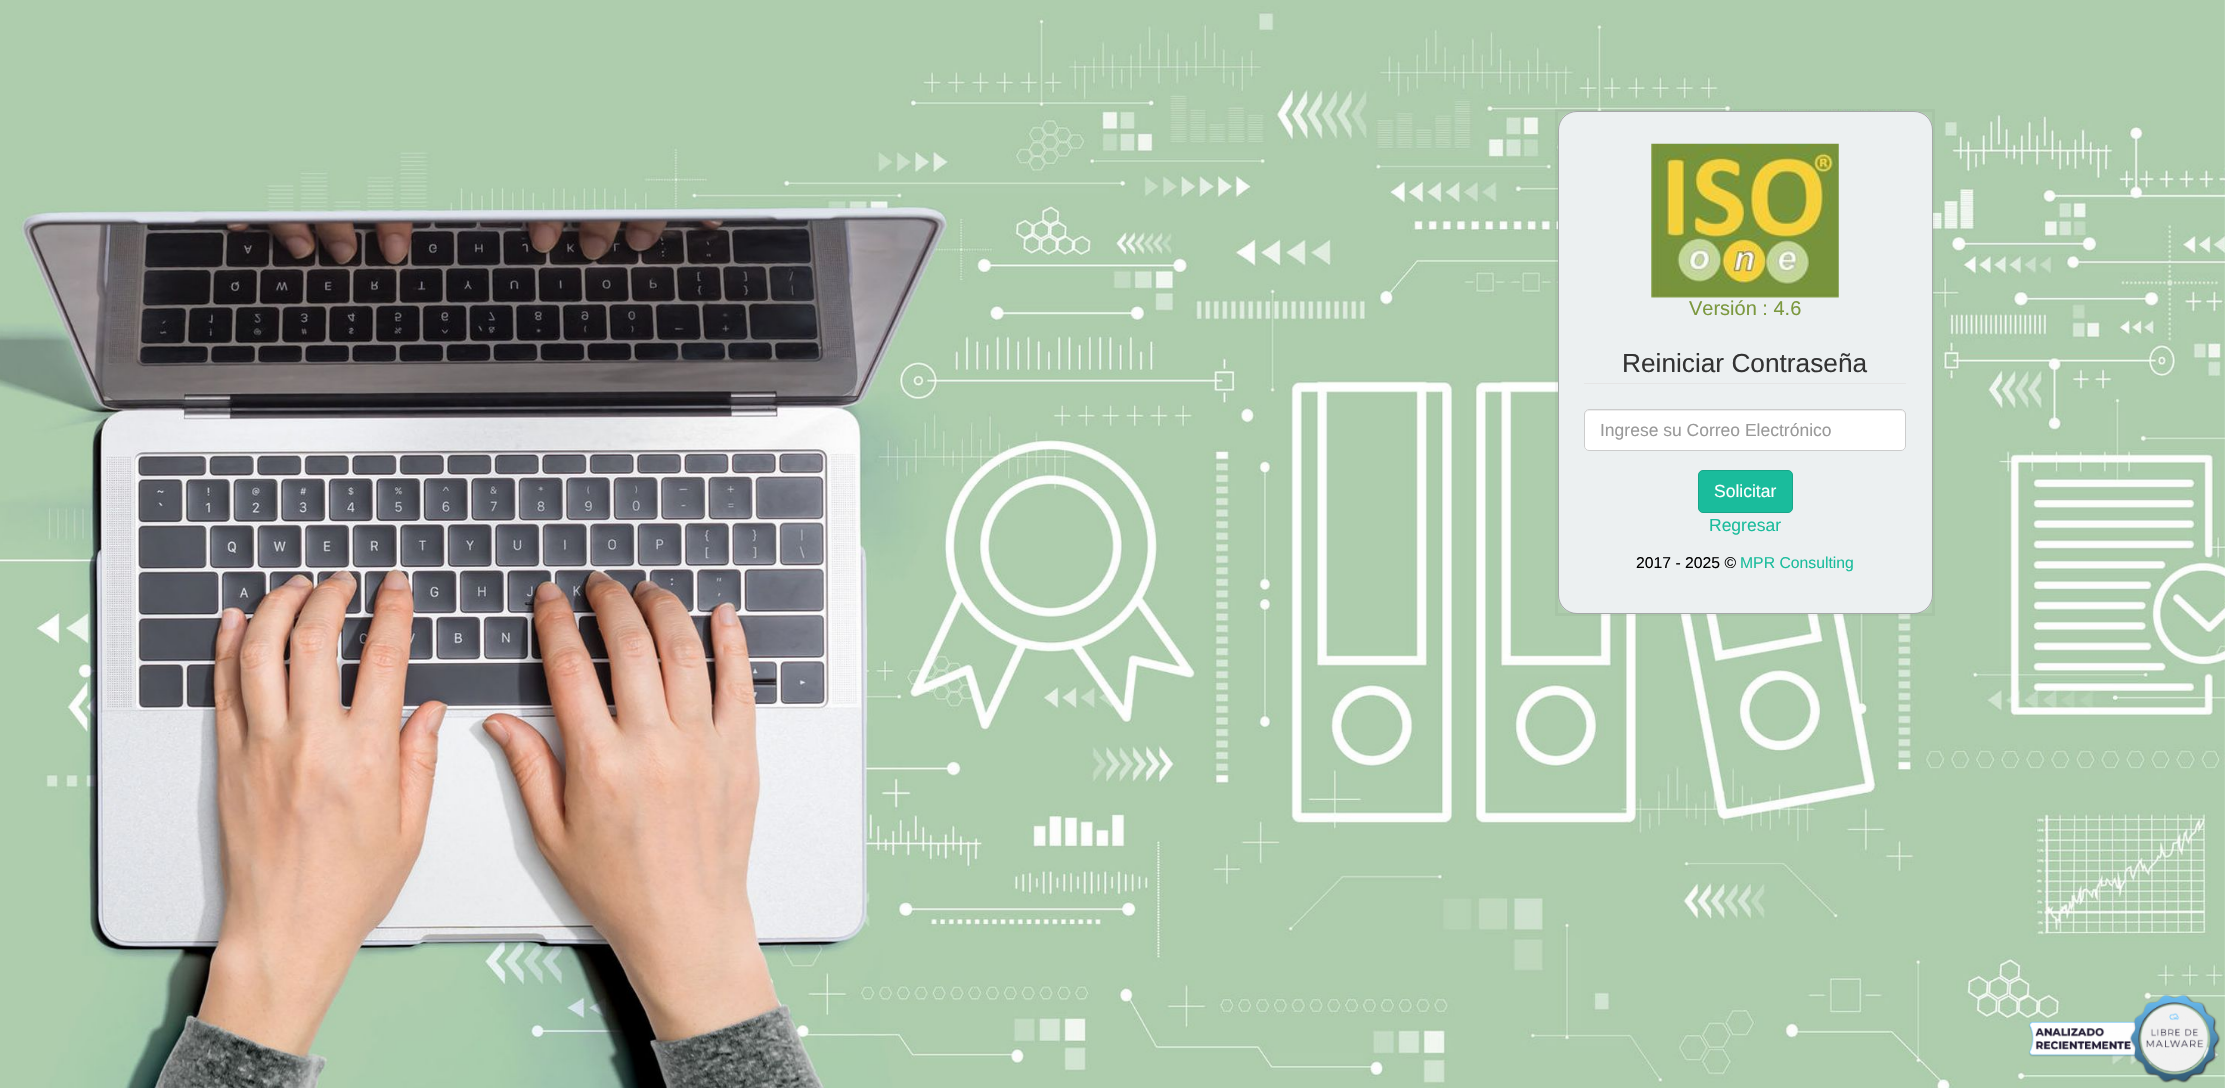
static SkFont makeFont(const char* family, int weight, float size, bool italic = false) {
  SkFontStyle style(weight, SkFontStyle::kNormal_Width,
    italic ? SkFontStyle::kItalic_Slant : SkFontStyle::kUpright_Slant);
  SkFont result(fontMgr->matchFamilyStyle(family, style), size);
  result.setSubpixel(true);
  return result;
}

static void text(SkCanvas* c, const char* s, float x, float y, const SkFont& font, SkColor color) {
  SkPaint ink(SkColor4f::FromColor(color));
  ink.setAntiAlias(true);
  c->drawString(s, x, y, font, ink);
}

static void box(SkCanvas* c, float l, float t, float r, float b, SkColor color) {
  SkPaint ink(SkColor4f::FromColor(color));
  ink.setAntiAlias(true);
  c->drawRect(SkRect::MakeLTRB(l, t, r, b), ink);
}

static void roundBox(SkCanvas* c, float l, float t, float r, float b, float radius, SkColor color) {
  SkPaint ink(SkColor4f::FromColor(color));
  ink.setAntiAlias(true);
  c->drawRoundRect(SkRect::MakeLTRB(l, t, r, b), radius, radius, ink);
}

static void picture(SkCanvas* c, const char* path, float l, float t, float r, float b) {
  auto image = SkImages::DeferredFromEncodedData(SkData::MakeFromFileName(path));
  c->drawImageRect(image, SkRect::MakeLTRB(l, t, r, b), SkSamplingOptions());
}

void draw(SkCanvas* c) {
  SkPaint paint;
  paint.setAntiAlias(true);
  c->clear(0xffffffff);
  picture(c, "img_01.png", 0, 0, 2225, 1088);
  paint.setStyle(SkPaint::kStroke_Style);
  paint.setStrokeWidth(3);
  paint.setColor(0x0a000000);
  c->drawRect(SkRect::MakeLTRB(1556.5f, 110.5f, 1933.5f, 614.5f), paint);
  roundBox(c, 1558, 111, 1933, 614, 19, 0xffecf0f1);
  paint.setStrokeWidth(1);
  paint.setColor(0x4d000000);
  c->drawRoundRect(SkRect::MakeLTRB(1558.5f, 111.5f, 1932.5f, 613.5f), 18.5f, 18.5f, paint);
  picture(c, "img_02.png", 1651, 143, 1839, 298);
  SkFont face1 = makeFont("Liberation Sans", 400, 20);
  text(c, "Versión : 4.6", 1689, 315, face1, 0xff7b983e);
  box(c, 1584, 383, 1906, 384, 0xffe5e5e5);
  SkFont face2 = makeFont("Liberation Sans", 400, 26.25f);
  text(c, "Reiniciar Contraseña", 1622, 372, face2, 0xff333333);
  roundBox(c, 1584, 409, 1906, 451, 5, 0xffffffff);
  paint.setStyle(SkPaint::kFill_Style);
  paint.setColor(0xffececec);
  c->drawPath(SkPathBuilder().moveTo(1589, 411).lineTo(1901, 411).cubicTo(1903, 411, 1905, 413, 1905, 415).lineTo(1905, 414).cubicTo(1905, 412, 1903, 410, 1901, 410).lineTo(1589, 410).cubicTo(1587, 410, 1585, 412, 1585, 414).lineTo(1585, 415).cubicTo(1585, 413, 1587, 411, 1589, 411).close().detach(), paint);
  paint.setStyle(SkPaint::kStroke_Style);
  paint.setColor(0xffcccccc);
  c->drawRoundRect(SkRect::MakeLTRB(1584.5f, 409.5f, 1905.5f, 450.5f), 4.5f, 4.5f, paint);
  SkFont face3 = makeFont("Liberation Sans", 400, 17.5f);
  text(c, "Ingrese su Correo Electrónico", 1600, 436, face3, 0xff999999);
  paint.setStyle(SkPaint::kFill_Style);
  paint.setColor(0xff1abc9c);
  c->drawRoundRect(SkRect::MakeLTRB(1698.5f, 470.5f, 1792.5f, 512.5f), 4.5f, 4.5f, paint);
  paint.setStyle(SkPaint::kStroke_Style);
  paint.setColor(0xff17a689);
  c->drawRoundRect(SkRect::MakeLTRB(1698.5f, 470.5f, 1792.5f, 512.5f), 4.5f, 4.5f, paint);
  text(c, "Solicitar", 1714, 497, face3, 0xffffffff);
  text(c, "Regresar", 1709, 531, face3, 0xff1abc9c);
  SkFont face4 = makeFont("Liberation Sans", 400, 15.75f);
  text(c, "2017 - 2025 ©", 1636, 568, face4, 0xff000000);
  text(c, "MPR Consulting", 1740, 568, face4, 0xff1abc9c);
  picture(c, "img_03.png", 2028, 994, 2221, 1083);
}
